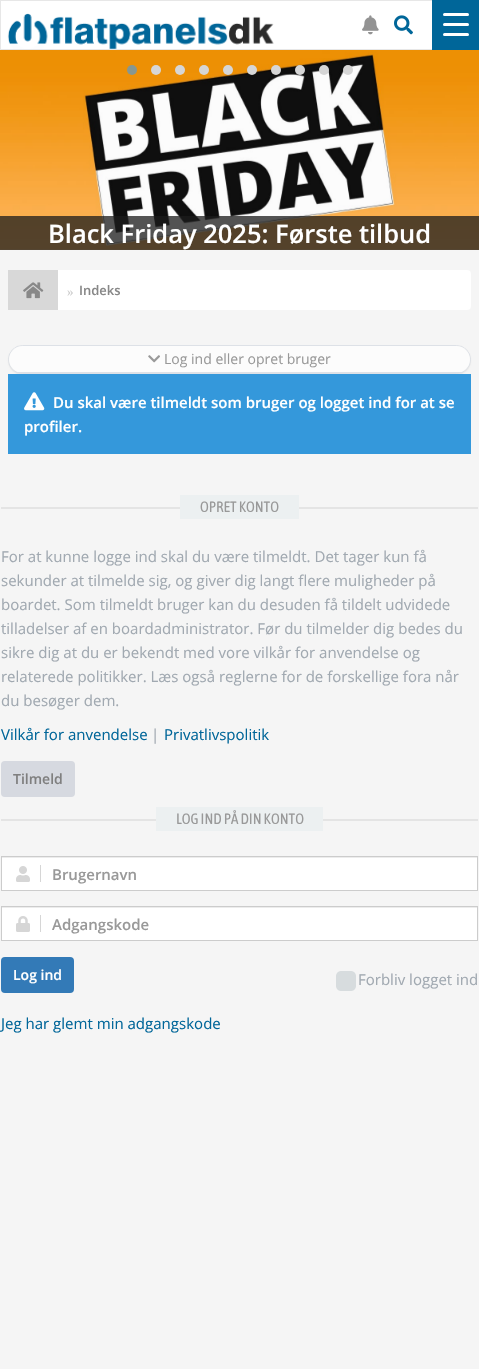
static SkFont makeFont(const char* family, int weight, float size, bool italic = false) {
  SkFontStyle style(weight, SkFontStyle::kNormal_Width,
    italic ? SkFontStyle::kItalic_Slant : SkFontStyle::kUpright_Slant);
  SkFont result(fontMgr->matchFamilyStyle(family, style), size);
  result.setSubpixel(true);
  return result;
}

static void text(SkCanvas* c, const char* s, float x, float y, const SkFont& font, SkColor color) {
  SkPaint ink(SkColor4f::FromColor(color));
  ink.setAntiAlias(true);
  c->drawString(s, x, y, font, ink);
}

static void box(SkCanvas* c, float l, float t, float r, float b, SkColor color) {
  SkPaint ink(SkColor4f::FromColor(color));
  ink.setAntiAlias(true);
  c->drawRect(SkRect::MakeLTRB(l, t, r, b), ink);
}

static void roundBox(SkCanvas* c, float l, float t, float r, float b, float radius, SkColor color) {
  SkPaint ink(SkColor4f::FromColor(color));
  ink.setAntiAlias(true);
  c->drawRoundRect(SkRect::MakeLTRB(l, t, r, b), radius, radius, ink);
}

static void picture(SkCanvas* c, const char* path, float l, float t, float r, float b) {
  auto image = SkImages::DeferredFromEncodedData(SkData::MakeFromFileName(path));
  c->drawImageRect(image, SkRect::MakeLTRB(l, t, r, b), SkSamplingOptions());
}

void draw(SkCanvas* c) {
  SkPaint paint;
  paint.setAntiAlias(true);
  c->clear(0xfff5f5f5);
  box(c, 1, 1, 432, 49, 0xffffffff);
  paint.setStyle(SkPaint::kStroke_Style);
  paint.setStrokeWidth(1);
  paint.setColor(0xffe7e7e7);
  c->drawRect(SkRect::MakeLTRB(0.5f, 0.5f, 478.5f, 49.5f), paint);
  picture(c, "img_01.png", 7, 13, 274, 49);
  picture(c, "img_02.png", 362, 15, 379, 35);
  picture(c, "img_03.png", 394, 15, 413, 35);
  box(c, 432, 0, 479, 50, 0xff006699);
  roundBox(c, 443, 33, 469, 36, 1.5f, 0xffffffff);
  roundBox(c, 443, 13, 469, 16, 1.5f, 0xffffffff);
  roundBox(c, 443, 23, 469, 26, 1.5f, 0xffffffff);
  picture(c, "img_04.png", 0, 50, 479, 250);
  paint.setStyle(SkPaint::kFill_Style);
  paint.setColor(0xff869791);
  c->drawCircle(132, 70, 5, paint);
  paint.setColor(0xffd6d6d6);
  c->drawCircle(156, 70, 5, paint);
  c->drawCircle(180, 70, 5, paint);
  c->drawCircle(204, 70, 5, paint);
  c->drawCircle(228, 70, 5, paint);
  c->drawCircle(252, 70, 5, paint);
  c->drawCircle(276, 70, 5, paint);
  c->drawCircle(300, 70, 5, paint);
  c->drawCircle(324, 70, 5, paint);
  c->drawCircle(348, 70, 5, paint);
  box(c, 0, 216, 479, 250, 0xbf1b1b1b);
  SkFont face1 = makeFont("Open Sans", 600, 25.5f);
  text(c, "Black Friday 2025: Første tilbud", 48, 243, face1, 0xffffffff);
  roundBox(c, 8, 270, 471, 310, 4, 0xffffffff);
  box(c, 8, 270, 58, 310, 0xffd8d8d8);
  picture(c, "img_05.png", 23, 282, 44, 299);
  SkFont face2 = makeFont("Liberation Serif", 400, 13);
  text(c, "»", 67, 296, face2, 0xffcccccc);
  SkFont face3 = makeFont("Open Sans", 600, 13);
  text(c, "Indeks", 79, 295, face3, 0xff888888);
  paint.setColor(0x0d000000);
  paint.setMaskFilter(SkMaskFilter::MakeBlur(kNormal_SkBlurStyle, 0.5f));
  c->drawRoundRect(SkRect::MakeLTRB(8, 346, 471, 375), 14.5f, 14.5f, paint);
  paint.setMaskFilter(nullptr);
  paint.setStyle(SkPaint::kStroke_Style);
  paint.setColor(0xffdde1e7);
  c->drawRoundRect(SkRect::MakeLTRB(8.5f, 345.5f, 470.5f, 373.5f), 14, 14, paint);
  roundBox(c, 9, 346, 470, 373, 13.5f, 0xfffcfcfc);
  box(c, 16, 372, 463, 373, 0xffdde1e7);
  picture(c, "img_06.png", 148, 355, 160, 363);
  SkFont face4 = makeFont("Open Sans", 400, 14);
  text(c, "Log ind eller opret bruger", 164, 364, face4, 0xff999999);
  box(c, 8, 374, 471, 454, 0xff3498db);
  picture(c, "img_07.png", 24, 392, 45, 411);
  SkFont face5 = makeFont("Open Sans", 600, 15);
  text(c, "Du skal være tilmeldt som bruger og logget ind for at se", 53, 408, face5, 0xffffffff);
  text(c, "profiler.", 24, 432, face5, 0xffffffff);
  box(c, 1, 507, 478, 509, 0xffe4e4e4);
  box(c, 180, 495, 299, 519, 0xffecf0f1);
  SkFont face6 = makeFont("Asap Condensed", 400, 15);
  text(c, "OPRET KONTO", 200, 512, face6, 0xff999999);
  SkFont face7 = makeFont("Open Sans", 400, 15);
  text(c, "For at kunne logge ind skal du være tilmeldt. Det tager kun få", 1, 562, face7, 0xffa1a9b1);
  text(c, "sekunder at tilmelde sig, og giver dig langt flere muligheder på", 1, 586, face7, 0xffa1a9b1);
  text(c, "boardet. Som tilmeldt bruger kan du desuden få tildelt udvidede", 1, 610, face7, 0xffa1a9b1);
  text(c, "tilladelser af en boardadministrator. Før du tilmelder dig bedes du", 1, 634, face7, 0xffa1a9b1);
  text(c, "sikre dig at du er bekendt med vore vilkår for anvendelse og", 1, 658, face7, 0xffa1a9b1);
  text(c, "relaterede politikker. Læs også reglerne for de forskellige fora når", 1, 682, face7, 0xffa1a9b1);
  text(c, "du besøger dem.", 1, 706, face7, 0xffa1a9b1);
  text(c, "Vilkår for anvendelse", 1, 740, face7, 0xff006699);
  text(c, "|", 151, 740, face7, 0xffa1a9b1);
  text(c, "Privatlivspolitik", 164, 740, face7, 0xff006699);
  roundBox(c, 1, 761, 75, 797, 4, 0xffd6d9e0);
  SkFont face8 = makeFont("Open Sans", 600, 14);
  text(c, "Tilmeld", 13, 784, face8, 0xff7f7f7f);
  box(c, 1, 819, 478, 821, 0xffe4e4e4);
  box(c, 156, 807, 323, 831, 0xffecf0f1);
  text(c, "LOG IND PÅ DIN KONTO", 176, 824, face6, 0xff999999);
  box(c, 2, 858, 477, 890, 0xffffffff);
  box(c, 2, 857, 477, 858, 0xffececec);
  paint.setColor(0xffcccccc);
  c->drawRect(SkRect::MakeLTRB(1.5f, 856.5f, 477.5f, 890.5f), paint);
  box(c, 40, 865, 41, 882, 0xffd6d6d6);
  picture(c, "img_08.png", 16, 866, 30, 882);
  text(c, "Brugernavn", 52, 880, face5, 0xff999999);
  box(c, 2, 908, 477, 940, 0xffffffff);
  box(c, 2, 907, 477, 908, 0xffececec);
  c->drawRect(SkRect::MakeLTRB(1.5f, 906.5f, 477.5f, 940.5f), paint);
  box(c, 40, 915, 41, 932, 0xffd6d6d6);
  picture(c, "img_09.png", 16, 916, 30, 932);
  text(c, "Adgangskode", 52, 930, face5, 0xff999999);
  roundBox(c, 1, 957, 74, 993, 4, 0xff337ab7);
  text(c, "Log ind", 13, 980, face8, 0xffffffff);
  picture(c, "img_10.png", 336, 971, 356, 991);
  text(c, "Forbliv logget ind", 358, 985, face7, 0xffa1a9b1);
  text(c, "Jeg har glemt min adgangskode", 1, 1029, face7, 0xff006699);
}
